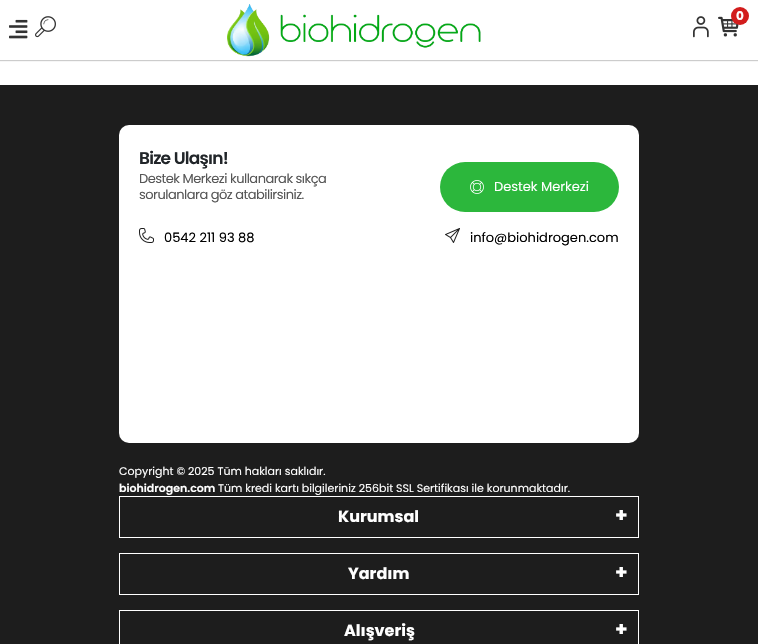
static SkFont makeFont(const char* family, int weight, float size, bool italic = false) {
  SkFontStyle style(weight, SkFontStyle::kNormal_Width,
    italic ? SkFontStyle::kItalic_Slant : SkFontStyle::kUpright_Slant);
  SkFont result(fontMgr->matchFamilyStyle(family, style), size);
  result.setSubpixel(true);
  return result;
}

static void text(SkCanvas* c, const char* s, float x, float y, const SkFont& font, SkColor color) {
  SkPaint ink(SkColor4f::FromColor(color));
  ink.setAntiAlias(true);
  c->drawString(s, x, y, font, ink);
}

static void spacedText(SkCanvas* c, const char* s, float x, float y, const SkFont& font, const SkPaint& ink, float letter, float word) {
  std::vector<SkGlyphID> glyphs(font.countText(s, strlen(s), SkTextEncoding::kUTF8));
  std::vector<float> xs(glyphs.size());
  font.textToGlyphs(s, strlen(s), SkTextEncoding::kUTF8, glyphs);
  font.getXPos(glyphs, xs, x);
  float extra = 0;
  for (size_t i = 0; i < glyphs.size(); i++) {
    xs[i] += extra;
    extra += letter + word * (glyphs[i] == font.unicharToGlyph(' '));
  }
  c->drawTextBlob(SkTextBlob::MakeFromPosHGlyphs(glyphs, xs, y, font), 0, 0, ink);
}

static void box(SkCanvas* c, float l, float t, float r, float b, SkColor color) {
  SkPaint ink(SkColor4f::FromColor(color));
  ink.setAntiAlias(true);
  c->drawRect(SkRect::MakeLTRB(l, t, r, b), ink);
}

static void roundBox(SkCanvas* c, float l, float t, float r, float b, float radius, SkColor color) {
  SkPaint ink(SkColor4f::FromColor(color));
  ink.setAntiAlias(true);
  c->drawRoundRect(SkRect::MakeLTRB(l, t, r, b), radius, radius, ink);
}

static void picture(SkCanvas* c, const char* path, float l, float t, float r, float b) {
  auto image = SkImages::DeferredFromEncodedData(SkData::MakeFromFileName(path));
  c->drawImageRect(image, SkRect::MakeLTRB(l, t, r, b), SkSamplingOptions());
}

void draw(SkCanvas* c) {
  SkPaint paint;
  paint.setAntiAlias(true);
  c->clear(0xffffffff);
  paint.setColor(0x33000000);
  paint.setMaskFilter(SkMaskFilter::MakeBlur(kNormal_SkBlurStyle, 0.5f));
  c->drawRect(SkRect::MakeLTRB(0, 1, 758, 61), paint);
  paint.setMaskFilter(nullptr);
  box(c, 0, 0, 758, 60, 0xffffffff);
  picture(c, "img_01.png", 9, 19, 28, 39);
  picture(c, "img_02.png", 35, 16, 56, 38);
  picture(c, "img_03.png", 227, 4, 481, 57);
  picture(c, "img_04.png", 693, 16, 709, 38);
  picture(c, "img_05.png", 718, 16, 739, 37);
  paint.setColor(0xffd21c1c);
  c->drawCircle(740, 16, 9, paint);
  SkFont face1 = makeFont("Poppins", 700, 12);
  text(c, "0", 736, 20, face1, 0xffffffff);
  box(c, 0, 85, 758, 644, 0xff1d1d1d);
  roundBox(c, 119, 125, 639, 443, 10, 0xffffffff);
  SkFont face2 = makeFont("Poppins", 600, 17);
  paint.setColor(0xff212529);
  spacedText(c, "Bize Ulaşın!", 139, 164, face2, paint, -0.75f, 0);
  SkFont face3 = makeFont("Poppins", 400, 13);
  paint.setColor(0xff575757);
  spacedText(c, "Destek Merkezi kullanarak sıkça", 139, 183, face3, paint, -0.5f, 0);
  spacedText(c, "sorulanlara göz atabilirsiniz.", 139, 199, face3, paint, -0.5f, 0);
  roundBox(c, 440, 162, 619, 212, 25, 0xff2cb73c);
  picture(c, "img_06.png", 470, 180, 484, 194);
  text(c, "Destek Merkezi", 494, 191, face3, 0xffffffff);
  picture(c, "img_07.png", 139, 228, 154, 243);
  text(c, "0542 211 93 88", 164, 242, face3, 0xff000000);
  picture(c, "img_08.png", 445, 228, 460, 243);
  text(c, "info@biohidrogen.com", 470, 242, face3, 0xff000000);
  SkFont face4 = makeFont("Poppins", 400, 11);
  text(c, "Copyright © 2025 Tüm hakları saklıdır.", 119, 475, face4, 0xffffffff);
  SkFont face5 = makeFont("Poppins", 600, 11);
  text(c, "biohidrogen.com", 119, 492, face5, 0xffffffff);
  text(c, "Tüm kredi kartı bilgileriniz 256bit SSL Sertifikası ile korunmaktadır.", 218, 492, face4, 0xffffffff);
  paint.setStyle(SkPaint::kStroke_Style);
  paint.setStrokeWidth(1);
  paint.setColor(0xffffffff);
  c->drawRect(SkRect::MakeLTRB(119.5f, 496.5f, 638.5f, 537.5f), paint);
  SkFont face6 = makeFont("Poppins", 700, 16);
  text(c, "Kurumsal", 338, 522, face6, 0xffffffff);
  SkFont face7 = makeFont("Poppins", 700, 20);
  text(c, "+", 615, 522, face7, 0xffffffff);
  c->drawRect(SkRect::MakeLTRB(119.5f, 553.5f, 638.5f, 594.5f), paint);
  text(c, "Yardım", 348, 579, face6, 0xffffffff);
  text(c, "+", 615, 579, face7, 0xffffffff);
  c->drawRect(SkRect::MakeLTRB(119.5f, 610.5f, 638.5f, 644.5f), paint);
  text(c, "Alışveriş", 344, 636, face6, 0xffffffff);
  text(c, "+", 615, 636, face7, 0xffffffff);
}
